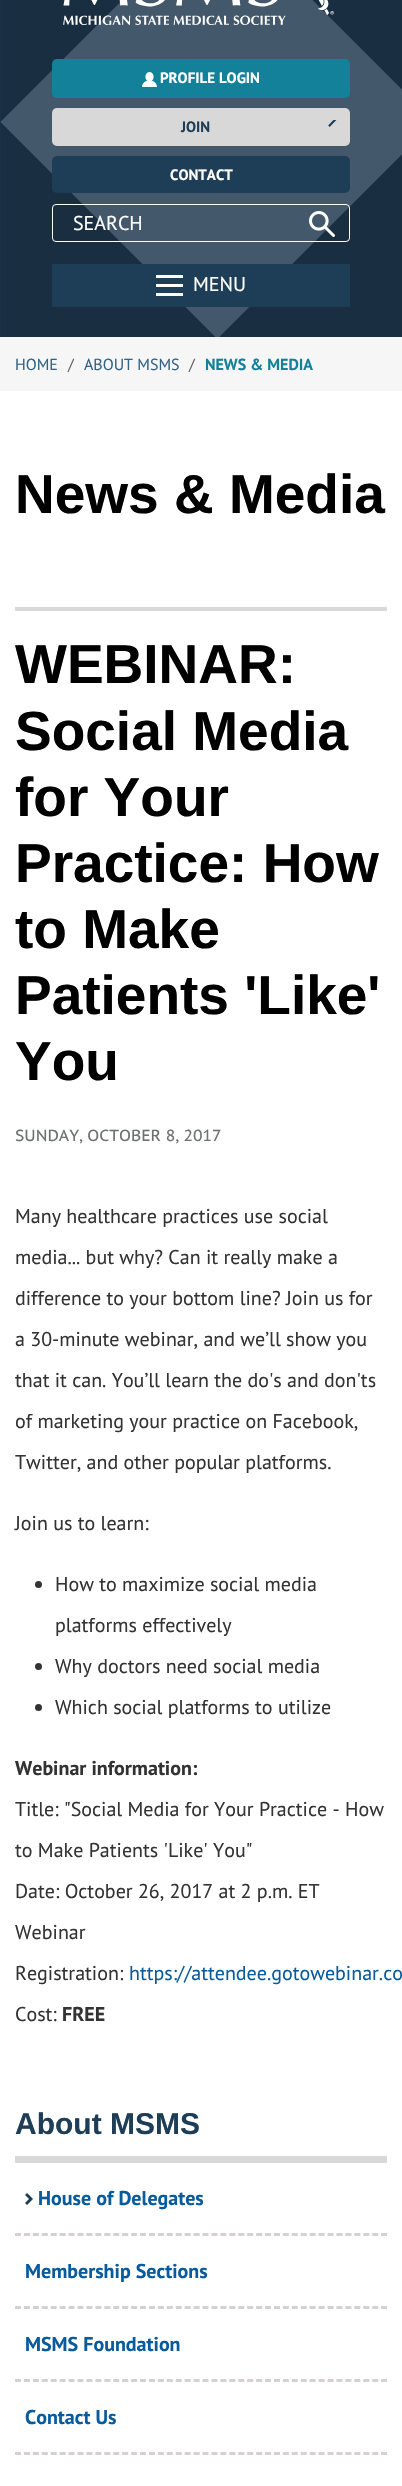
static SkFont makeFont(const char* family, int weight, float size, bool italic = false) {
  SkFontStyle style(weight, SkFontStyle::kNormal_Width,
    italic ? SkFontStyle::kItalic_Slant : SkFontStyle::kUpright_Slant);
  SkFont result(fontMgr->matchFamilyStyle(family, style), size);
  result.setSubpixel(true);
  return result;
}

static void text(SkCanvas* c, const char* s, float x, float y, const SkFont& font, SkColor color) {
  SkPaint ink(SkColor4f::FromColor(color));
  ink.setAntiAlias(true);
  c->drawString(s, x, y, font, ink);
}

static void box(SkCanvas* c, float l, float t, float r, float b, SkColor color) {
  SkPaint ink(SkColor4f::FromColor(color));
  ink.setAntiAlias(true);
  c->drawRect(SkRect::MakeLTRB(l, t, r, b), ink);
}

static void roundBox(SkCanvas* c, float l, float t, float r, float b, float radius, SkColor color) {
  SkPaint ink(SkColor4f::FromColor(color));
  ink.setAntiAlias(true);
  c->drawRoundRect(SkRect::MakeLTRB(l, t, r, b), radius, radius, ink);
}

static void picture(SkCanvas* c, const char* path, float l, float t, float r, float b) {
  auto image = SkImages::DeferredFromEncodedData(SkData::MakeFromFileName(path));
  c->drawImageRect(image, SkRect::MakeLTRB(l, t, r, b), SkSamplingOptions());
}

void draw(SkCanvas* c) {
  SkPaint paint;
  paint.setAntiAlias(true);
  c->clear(0xffffffff);
  box(c, 0, 0, 402, 337, 0xff183650);
  picture(c, "img_01.png", 0, 0, 402, 337);
  picture(c, "img_02.png", 63, 0, 334, 25);
  roundBox(c, 52, 59, 350, 98, 5, 0xff128199);
  picture(c, "img_03.png", 142, 72, 157, 87);
  SkFont face1 = makeFont("PT Sans", 700, 15);
  text(c, "PROFILE LOGIN", 160, 83, face1, 0xffffffff);
  roundBox(c, 52, 108, 350, 146, 5, 0xffd8d8d8);
  text(c, "JOIN", 181, 132, face1, 0xff1e3e57);
  picture(c, "img_04.png", 328, 120, 337, 127);
  roundBox(c, 52, 156, 350, 193, 5, 0xff1e3e57);
  text(c, "CONTACT", 170, 180, face1, 0xffffffff);
  paint.setStyle(SkPaint::kStroke_Style);
  paint.setStrokeWidth(1);
  paint.setColor(0xffffffff);
  c->drawRoundRect(SkRect::MakeLTRB(52.5f, 204.5f, 349.5f, 241.5f), 3.5f, 3.5f, paint);
  SkFont face2 = makeFont("PT Sans", 400, 20);
  text(c, "SEARCH", 73, 230, face2, 0xffffffff);
  picture(c, "img_05.png", 309, 211, 335, 237);
  box(c, 52, 264, 350, 307, 0xff1e3e57);
  box(c, 156, 284, 183, 287, 0xffffffff);
  box(c, 156, 275, 183, 278, 0xffffffff);
  box(c, 156, 293, 183, 296, 0xffffffff);
  text(c, "MENU", 193, 291, face2, 0xffffffff);
  box(c, 0, 337, 402, 391, 0xfff6f6f6);
  SkFont face3 = makeFont("PT Sans", 400, 16);
  text(c, "HOME", 15, 370, face3, 0xff336383);
  text(c, "/", 68, 370, face3, 0xff6d6565);
  text(c, "ABOUT MSMS", 84, 370, face3, 0xff336383);
  text(c, "/", 189, 370, face3, 0xff6d6565);
  SkFont face4 = makeFont("PT Sans", 700, 16);
  text(c, "NEWS & MEDIA", 205, 370, face4, 0xff128199);
  SkFont face5 = makeFont("Liberation Sans", 700, 55);
  text(c, "News & Media", 15, 513, face5, 0xff000000);
  box(c, 15, 607, 387, 611, 0xffd8d8d8);
  text(c, "WEBINAR:", 15, 683, face5, 0xff000000);
  text(c, "Social Media", 15, 750, face5, 0xff000000);
  text(c, "for Your", 15, 816, face5, 0xff000000);
  text(c, "Practice: How", 15, 882, face5, 0xff000000);
  text(c, "to Make", 15, 948, face5, 0xff000000);
  text(c, "Patients 'Like'", 15, 1014, face5, 0xff000000);
  text(c, "You", 15, 1080, face5, 0xff000000);
  SkFont face6 = makeFont("PT Sans Caption", 400, 16);
  text(c, "SUNDAY, OCTOBER 8, 2017", 15, 1141, face6, 0xff6e7272);
  text(c, "Many healthcare practices use social", 15, 1223, face2, 0xff333333);
  text(c, "media... but why? Can it really make a", 15, 1264, face2, 0xff333333);
  text(c, "difference to your bottom line? Join us for", 15, 1305, face2, 0xff333333);
  text(c, "a 30-minute webinar, and we’ll show you", 15, 1346, face2, 0xff333333);
  text(c, "that it can. You’ll learn the do's and don'ts", 15, 1387, face2, 0xff333333);
  text(c, "of marketing your practice on Facebook,", 15, 1428, face2, 0xff333333);
  text(c, "Twitter, and other popular platforms.", 15, 1469, face2, 0xff333333);
  text(c, "Join us to learn:", 15, 1530, face2, 0xff333333);
  paint.setStyle(SkPaint::kFill_Style);
  paint.setColor(0xff333333);
  c->drawCircle(38.5f, 1584.5f, 3.5f, paint);
  text(c, "How to maximize social media", 55, 1591, face2, 0xff333333);
  text(c, "platforms effectively", 55, 1632, face2, 0xff333333);
  c->drawCircle(38.5f, 1666.5f, 3.5f, paint);
  text(c, "Why doctors need social media", 55, 1673, face2, 0xff333333);
  c->drawCircle(38.5f, 1707.5f, 3.5f, paint);
  text(c, "Which social platforms to utilize", 55, 1714, face2, 0xff333333);
  SkFont face7 = makeFont("PT Sans", 700, 20);
  text(c, "Webinar information:", 15, 1775, face7, 0xff333333);
  text(c, "Title: \"Social Media for Your Practice - How", 15, 1816, face2, 0xff333333);
  text(c, "to Make Patients 'Like' You\"", 15, 1857, face2, 0xff333333);
  text(c, "Date: October 26, 2017 at 2 p.m. ET", 15, 1898, face2, 0xff333333);
  text(c, "Webinar", 15, 1939, face2, 0xff333333);
  text(c, "Registration:", 15, 1980, face2, 0xff333333);
  text(c, "https://attendee.gotowebinar.co", 129, 1980, face2, 0xff085b9d);
  text(c, "Cost:", 15, 2021, face2, 0xff333333);
  text(c, "FREE", 62, 2021, face7, 0xff333333);
  SkFont face8 = makeFont("Liberation Sans", 700, 30);
  text(c, "About MSMS", 15, 2134, face8, 0xff1e3e57);
  box(c, 15, 2156, 387, 2163, 0xffd8d8d8);
  paint.setStyle(SkPaint::kStroke_Style);
  paint.setStrokeWidth(3);
  paint.setColor(0xffd5d1d1);
  paint.setPathEffect(SkDashPathEffect::Make({{6, 2.93f}}, 0));
  c->drawPath(SkPathBuilder().moveTo(15, 2234.5f).lineTo(387, 2234.5f).detach(), paint);
  paint.setPathEffect(nullptr);
  picture(c, "img_06.png", 25, 2193, 33, 2205);
  text(c, "House of Delegates", 38, 2205, face7, 0xff085b9d);
  paint.setPathEffect(SkDashPathEffect::Make({{6, 2.93f}}, 0));
  c->drawPath(SkPathBuilder().moveTo(15, 2307.5f).lineTo(387, 2307.5f).detach(), paint);
  paint.setPathEffect(nullptr);
  text(c, "Membership Sections", 25, 2278, face7, 0xff085b9d);
  paint.setPathEffect(SkDashPathEffect::Make({{6, 2.93f}}, 0));
  c->drawPath(SkPathBuilder().moveTo(15, 2380.5f).lineTo(387, 2380.5f).detach(), paint);
  paint.setPathEffect(nullptr);
  text(c, "MSMS Foundation", 25, 2351, face7, 0xff085b9d);
  paint.setPathEffect(SkDashPathEffect::Make({{6, 2.93f}}, 0));
  c->drawPath(SkPathBuilder().moveTo(15, 2453.5f).lineTo(387, 2453.5f).detach(), paint);
  paint.setPathEffect(nullptr);
  text(c, "Contact Us", 25, 2424, face7, 0xff085b9d);
}
